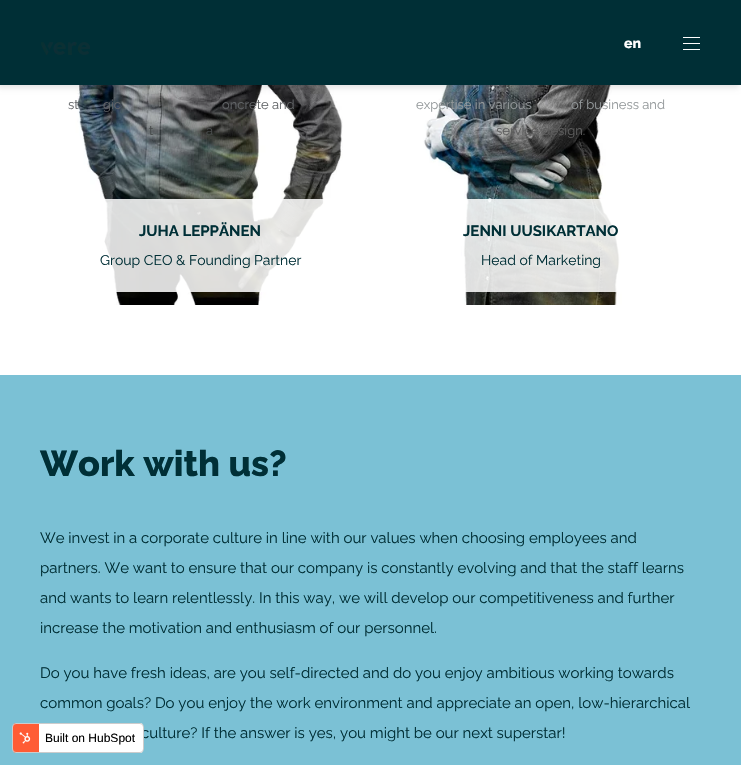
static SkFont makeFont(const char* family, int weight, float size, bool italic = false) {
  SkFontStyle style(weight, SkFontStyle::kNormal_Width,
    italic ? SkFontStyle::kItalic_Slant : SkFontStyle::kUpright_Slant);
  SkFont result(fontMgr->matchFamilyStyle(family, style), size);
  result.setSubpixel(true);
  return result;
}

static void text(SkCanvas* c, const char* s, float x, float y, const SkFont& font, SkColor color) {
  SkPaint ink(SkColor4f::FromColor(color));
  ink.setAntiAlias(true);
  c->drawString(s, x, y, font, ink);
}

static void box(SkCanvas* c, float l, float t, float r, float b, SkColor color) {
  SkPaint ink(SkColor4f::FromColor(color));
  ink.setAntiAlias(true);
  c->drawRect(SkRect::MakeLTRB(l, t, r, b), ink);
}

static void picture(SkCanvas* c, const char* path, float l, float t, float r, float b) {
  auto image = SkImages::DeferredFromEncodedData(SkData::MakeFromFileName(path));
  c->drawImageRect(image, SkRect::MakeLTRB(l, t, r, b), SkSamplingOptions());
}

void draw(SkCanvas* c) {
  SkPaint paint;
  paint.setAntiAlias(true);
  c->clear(0xffffffff);
  picture(c, "img_02.png", 74, 85, 343, 305);
  picture(c, "img_03.png", 423, 85, 622, 305);
  paint.setColor(0x1a000000);
  paint.setMaskFilter(SkMaskFilter::MakeBlur(kNormal_SkBlurStyle, 2.5f));
  c->drawRect(SkRect::MakeLTRB(-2, 3, 739, 88), paint);
  paint.setMaskFilter(nullptr);
  box(c, 0, 0, 741, 85, 0xff002f36);
  picture(c, "img_01.png", 41, 42, 90, 55);
  SkFont face1 = makeFont("Raleway", 800, 14);
  text(c, "en", 624, 48, face1, 0xffffffff);
  box(c, 683, 37, 700, 38, 0xffffffff);
  box(c, 683, 43, 700, 44, 0xffffffff);
  box(c, 683, 49, 700, 50, 0xffffffff);
  SkFont face2 = makeFont("Raleway", 400, 13);
  text(c, "st", 68, 109, face2, 0xff616467);
  text(c, "gic", 103, 109, face2, 0xff616467);
  text(c, "oncrete and", 222, 109, face2, 0xff616467);
  text(c, "t", 149, 135, face2, 0xff474b4b);
  text(c, "a", 206, 135, face2, 0xff474b4b);
  text(c, ".", 249, 135, face2, 0xff474b4b);
  box(c, 103, 199, 324, 292, 0xd9ffffff);
  SkFont face3 = makeFont("Raleway", 700, 15);
  text(c, "JUHA LEPPÄNEN", 139, 236, face3, 0xff002f36);
  SkFont face4 = makeFont("Raleway", 400, 14);
  text(c, "Group CEO & Founding Partner", 100, 265, face4, 0xff002f36);
  text(c, "expertise in various", 416, 109, face2, 0xff94999b);
  text(c, "of business and", 571, 109, face2, 0xff94999b);
  text(c, "service design.", 496, 135, face2, 0xff5d5d5d);
  box(c, 462, 199, 622, 292, 0xd9ffffff);
  text(c, "JENNI UUSIKARTANO", 463, 236, face3, 0xff002f36);
  text(c, "Head of Marketing", 481, 265, face4, 0xff002f36);
  box(c, 0, 375, 741, 765, 0xff7bc1d5);
  SkFont face5 = makeFont("Raleway", 800, 36);
  text(c, "Work with us?", 40, 476, face5, 0xff002f36);
  SkFont face6 = makeFont("Raleway", 400, 15);
  text(c, "We invest in a corporate culture in line with our values when choosing employees and", 40, 543, face6, 0xff002f36);
  text(c, "partners. We want to ensure that our company is constantly evolving and that the staff learns", 40, 573, face6, 0xff002f36);
  text(c, "and wants to learn relentlessly. In this way, we will develop our competitiveness and further", 40, 603, face6, 0xff002f36);
  text(c, "increase the motivation and enthusiasm of our personnel.", 40, 633, face6, 0xff002f36);
  text(c, "Do you have fresh ideas, are you self-directed and do you enjoy ambitious working towards", 40, 678, face6, 0xff002f36);
  text(c, "common goals? Do you enjoy the work environment and appreciate an open, low-hierarchical", 40, 708, face6, 0xff002f36);
  text(c, "culture? If the answer is yes, you might be our next superstar!", 141, 738, face6, 0xff002f36);
  c->save();
  c->clipPath(SkPathBuilder().moveTo(16, 723).lineTo(140, 723).cubicTo(142, 723, 144, 725, 144, 727).lineTo(144, 749).cubicTo(144, 751, 142, 753, 140, 753).lineTo(16, 753).cubicTo(14, 753, 12, 751, 12, 749).lineTo(12, 727).cubicTo(12, 725, 14, 723, 16, 723).close().detach(), true);
  box(c, 13, 723, 39, 753, 0xffff5c35);
  box(c, 39, 723, 143, 753, 0xffffffff);
  c->restore();
  paint.setStyle(SkPaint::kStroke_Style);
  paint.setStrokeWidth(1);
  paint.setColor(0xffcccccc);
  c->drawRoundRect(SkRect::MakeLTRB(12.5f, 723.5f, 143.5f, 752.5f), 3.5f, 3.5f, paint);
  picture(c, "img_04.png", 19, 732, 31, 744);
  SkFont face7 = makeFont("Liberation Sans", 400, 12);
  text(c, "Built on HubSpot", 45, 742, face7, 0xff000000);
}
